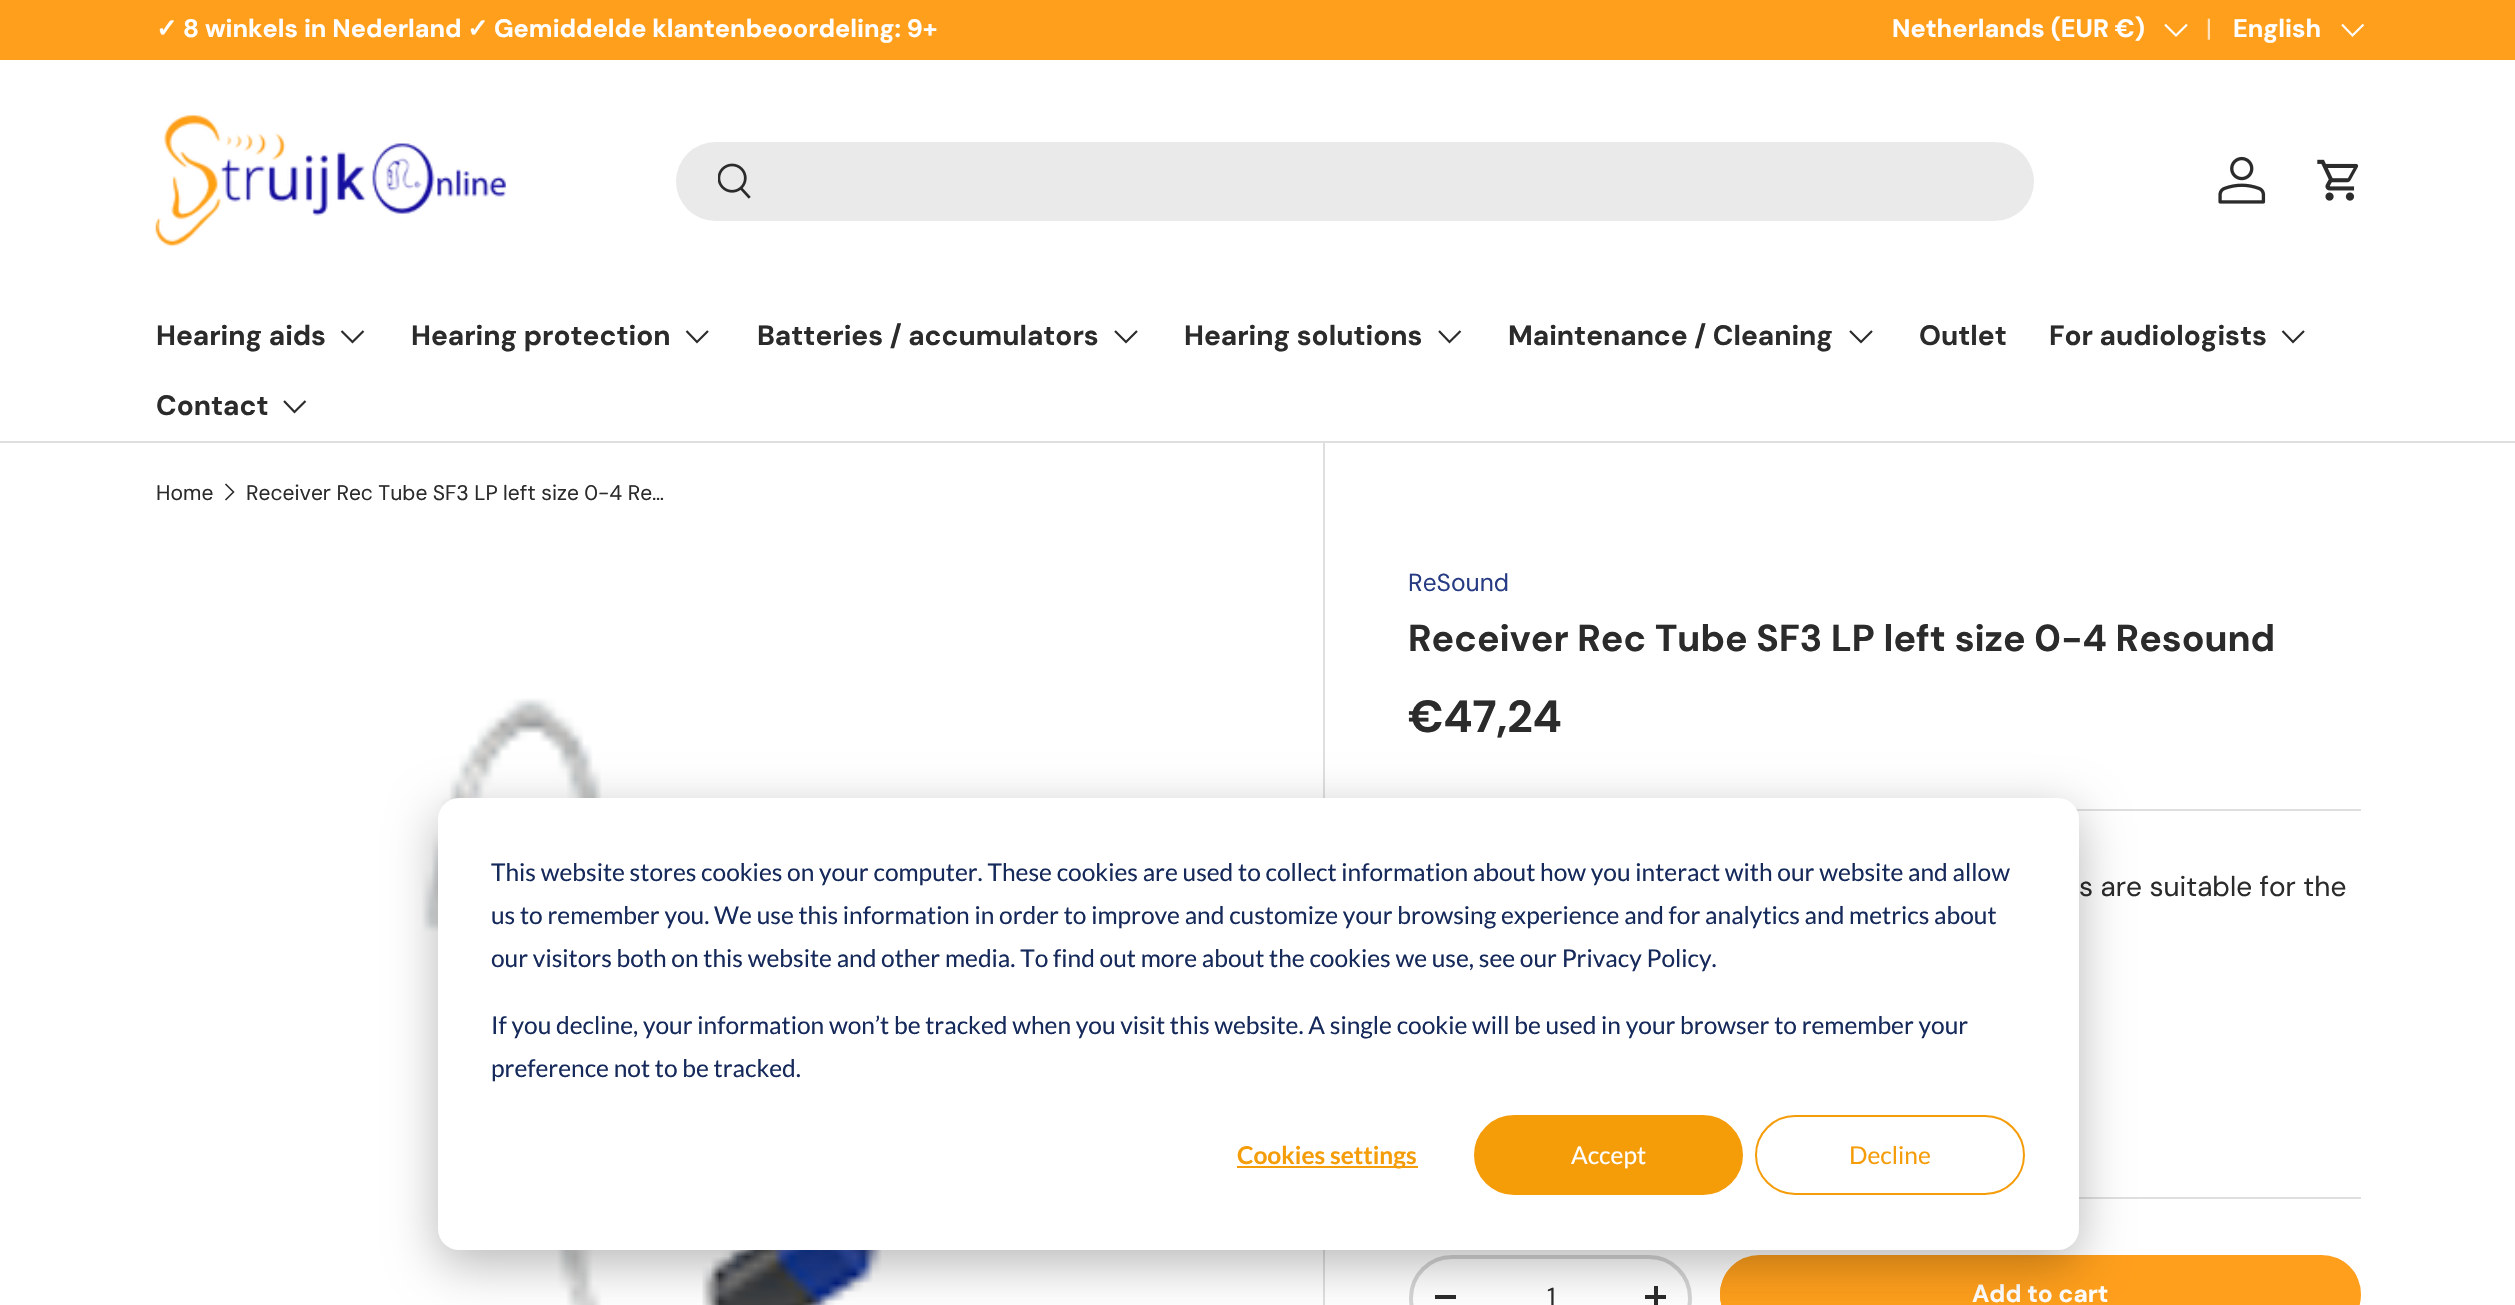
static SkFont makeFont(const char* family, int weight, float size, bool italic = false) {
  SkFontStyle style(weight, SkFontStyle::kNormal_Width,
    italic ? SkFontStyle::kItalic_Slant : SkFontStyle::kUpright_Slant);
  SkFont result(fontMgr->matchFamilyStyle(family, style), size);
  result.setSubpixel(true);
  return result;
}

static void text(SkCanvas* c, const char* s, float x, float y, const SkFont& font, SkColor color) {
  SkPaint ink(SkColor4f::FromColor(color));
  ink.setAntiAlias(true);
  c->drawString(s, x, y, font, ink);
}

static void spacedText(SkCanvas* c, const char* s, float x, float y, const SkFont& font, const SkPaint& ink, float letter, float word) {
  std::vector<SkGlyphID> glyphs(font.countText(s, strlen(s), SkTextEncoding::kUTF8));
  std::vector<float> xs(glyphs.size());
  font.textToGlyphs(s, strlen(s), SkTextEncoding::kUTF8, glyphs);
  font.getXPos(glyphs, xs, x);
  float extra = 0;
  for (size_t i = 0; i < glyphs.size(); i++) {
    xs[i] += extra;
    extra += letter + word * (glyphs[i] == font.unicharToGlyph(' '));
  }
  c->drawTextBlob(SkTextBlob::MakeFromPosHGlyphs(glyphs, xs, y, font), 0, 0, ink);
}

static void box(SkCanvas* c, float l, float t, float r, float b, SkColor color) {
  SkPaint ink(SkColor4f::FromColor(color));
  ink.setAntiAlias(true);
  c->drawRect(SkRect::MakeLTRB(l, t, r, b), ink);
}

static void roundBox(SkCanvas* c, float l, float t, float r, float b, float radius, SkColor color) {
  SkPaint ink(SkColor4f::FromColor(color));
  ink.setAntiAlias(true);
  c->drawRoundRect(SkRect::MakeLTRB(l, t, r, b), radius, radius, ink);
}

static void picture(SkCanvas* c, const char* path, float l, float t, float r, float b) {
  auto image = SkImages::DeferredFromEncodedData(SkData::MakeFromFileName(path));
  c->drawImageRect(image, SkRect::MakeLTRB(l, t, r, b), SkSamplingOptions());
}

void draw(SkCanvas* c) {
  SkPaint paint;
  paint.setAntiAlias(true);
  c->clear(0xffffffff);
  box(c, 0, 0, 2515, 60, 0xffff9f1c);
  SkFont face1 = makeFont("DejaVu Sans", 700, 25.25f);
  text(c, "✓", 156, 37, face1, 0xffffffff);
  SkFont face2 = makeFont("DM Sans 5", 700, 25.25f);
  text(c, "8 winkels in Nederland", 183, 37, face2, 0xffffffff);
  text(c, "✓", 467, 37, face1, 0xffffffff);
  text(c, "Gemiddelde klantenbeoordeling: 9+", 494, 37, face2, 0xffffffff);
  text(c, "Netherlands (EUR €)", 1892, 37, face2, 0xffffffff);
  paint.setStyle(SkPaint::kStroke_Style);
  paint.setStrokeWidth(2.2f);
  paint.setColor(0xffffffff);
  c->drawPath(SkPathBuilder().moveTo(2187, 24.5f).lineTo(2176, 35.5f).lineTo(2165, 24.5f).detach(), paint);
  SkFont face3 = makeFont("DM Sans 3", 400, 25.25f);
  text(c, "|", 2206, 37, face3, 0xffffe2bb);
  text(c, "English", 2233, 37, face2, 0xffffffff);
  c->drawPath(SkPathBuilder().moveTo(2363.5f, 24.5f).lineTo(2352.5f, 35.5f).lineTo(2342, 24.5f).detach(), paint);
  box(c, 0, 441, 2515, 443, 0xffdfdfdf);
  picture(c, "img_01.png", 155, 114, 506, 247);
  roundBox(c, 676, 142, 2034, 221, 39.5f, 0xffeaeaea);
  picture(c, "img_02.png", 718, 163, 751, 199);
  picture(c, "img_03.png", 2218, 156, 2266, 204);
  picture(c, "img_04.png", 2317, 159, 2359, 201);
  SkFont face4 = makeFont("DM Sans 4", 700, 28);
  text(c, "Hearing aids", 156, 345, face4, 0xff2a2b2a);
  paint.setColor(0xff2a2b2a);
  c->drawPath(SkPathBuilder().moveTo(363.5f, 331).lineTo(352.5f, 342).lineTo(341.5f, 331).detach(), paint);
  text(c, "Hearing protection", 411, 345, face4, 0xff2a2b2a);
  c->drawPath(SkPathBuilder().moveTo(708, 331).lineTo(697, 342).lineTo(686.5f, 331).detach(), paint);
  text(c, "Batteries / accumulators", 757, 345, face4, 0xff2a2b2a);
  c->drawPath(SkPathBuilder().moveTo(1137, 331).lineTo(1126, 342).lineTo(1115, 331).detach(), paint);
  text(c, "Hearing solutions", 1184, 345, face4, 0xff2a2b2a);
  c->drawPath(SkPathBuilder().moveTo(1460.5f, 331).lineTo(1449.5f, 342).lineTo(1439, 331).detach(), paint);
  text(c, "Maintenance / Cleaning", 1508, 345, face4, 0xff2a2b2a);
  c->drawPath(SkPathBuilder().moveTo(1872, 331).lineTo(1861, 342).lineTo(1850, 331).detach(), paint);
  text(c, "Outlet", 1919, 345, face4, 0xff2a2b2a);
  text(c, "For audiologists", 2049, 345, face4, 0xff2a2b2a);
  c->drawPath(SkPathBuilder().moveTo(2304, 331).lineTo(2293, 342).lineTo(2282.5f, 331).detach(), paint);
  text(c, "Contact", 156, 415, face4, 0xff2a2b2a);
  c->drawPath(SkPathBuilder().moveTo(305.5f, 401).lineTo(294.5f, 412).lineTo(284, 401).detach(), paint);
  SkFont face5 = makeFont("DM Sans", 400, 21);
  text(c, "Home", 156, 500, face5, 0xff2a2b2a);
  paint.setStrokeWidth(1.6f);
  c->drawPath(SkPathBuilder().moveTo(225.5f, 484).lineTo(233.5f, 492).lineTo(225.5f, 500).detach(), paint);
  paint.setStyle(SkPaint::kFill_Style);
  spacedText(c, "Receiver Rec Tube SF3 LP left size 0-4 Re…", 246, 500, face5, paint, 0, -0.25f);
  picture(c, "img_05.png", 422, 698, 882, 1305);
  box(c, 1323, 443, 1325, 1305, 0xffdfdfdf);
  SkFont face6 = makeFont("DM Sans", 400, 24.5f);
  text(c, "ReSound", 1408, 591, face6, 0xff263b83);
  SkFont face7 = makeFont("DM Sans", 700, 37.5f);
  text(c, "Receiver Rec Tube SF3 LP left size 0-4 Resound", 1408, 651, face7, 0xff2a2b2a);
  SkFont face8 = makeFont("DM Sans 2", 700, 45);
  text(c, "€47,24", 1408, 732, face8, 0xff2a2b2a);
  box(c, 2076, 809, 2361, 811, 0xffdfdfdf);
  SkFont face9 = makeFont("DM Sans 2", 400, 28);
  text(c, "s are suitable for the", 2079, 896, face9, 0xff2a2b2a);
  box(c, 2079, 1197, 2361, 1199, 0xffdfdfdf);
  paint.setStyle(SkPaint::kStroke_Style);
  paint.setStrokeWidth(4);
  paint.setColor(0xffd4d5d4);
  c->drawRoundRect(SkRect::MakeLTRB(1411, 1257, 1690, 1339), 41, 41, paint);
  box(c, 1435, 1295, 1456, 1299, 0xff2a2b2a);
  text(c, "1", 1547, 1305, face6, 0xff2a2b2a);
  box(c, 1645, 1295, 1666, 1299, 0xff2a2b2a);
  box(c, 1654, 1286, 1658, 1305, 0xff2a2b2a);
  c->save();
  c->clipPath(SkPathBuilder().moveTo(1759.5f, 1255).lineTo(2321.5f, 1255).cubicTo(2343.5f, 1255, 2361, 1272.5f, 2361, 1294.5f).cubicTo(2361, 1316.5f, 2343.5f, 1334, 2321.5f, 1334).lineTo(1759.5f, 1334).cubicTo(1737.5f, 1334, 1720, 1316.5f, 1720, 1294.5f).cubicTo(1720, 1272.5f, 1737.5f, 1255, 1759.5f, 1255).close().detach(), true);
  paint.setStyle(SkPaint::kFill_Style);
  {
    const SkColor colors[] = {0xffffb44d, 0xffff9f1c, 0xffff9f1c};
    const float stops[] = {0.6f, 0.6f, 1};
    const SkPoint ends[] = {{504, 1069}, {2310, 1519}};
    paint.setShader(SkGradientShader::MakeLinear(ends, colors, stops, 3, SkTileMode::kClamp));
    paint.setAlpha(255);
  }
  c->drawRect(SkRect::MakeLTRB(1720, 1258, 2357, 1305), paint);
  c->restore();
  paint.setStyle(SkPaint::kStroke_Style);
  paint.setShader(nullptr);
  paint.setColor(0xffff9f1c);
  c->drawRoundRect(SkRect::MakeLTRB(1722, 1257, 2359, 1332), 37.5f, 37.5f, paint);
  SkFont face10 = makeFont("DM Sans 3", 700, 24.5f);
  text(c, "Add to cart", 1972, 1302, face10, 0xffffffff);
  paint.setStyle(SkPaint::kFill_Style);
  paint.setColor(0x47000000);
  paint.setMaskFilter(SkMaskFilter::MakeBlur(kNormal_SkBlurStyle, 24.5f));
  c->drawRoundRect(SkRect::MakeLTRB(438, 812, 2079, 1264), 21, 21, paint);
  paint.setMaskFilter(nullptr);
  roundBox(c, 438, 798, 2079, 1250, 21, 0xffffffff);
  SkFont face11 = makeFont("Lato", 400, 24.5f);
  text(c, "This website stores cookies on your computer. These cookies are used to collect information about how you interact with our website and allow", 491, 881, face11, 0xff15295a);
  text(c, "us to remember you. We use this information in order to improve and customize your browsing experience and for analytics and metrics about", 491, 924, face11, 0xff15295a);
  text(c, "our visitors both on this website and other media. To find out more about the cookies we use, see our Privacy Policy.", 491, 967, face11, 0xff15295a);
  text(c, "If you decline, your information won’t be tracked when you visit this website. A single cookie will be used in your browser to remember your", 491, 1034, face11, 0xff15295a);
  text(c, "preference not to be tracked.", 491, 1077, face11, 0xff15295a);
  box(c, 1237, 1166, 1418, 1168, 0xfff59c09);
  SkFont face12 = makeFont("Lato", 700, 24.5f);
  text(c, "Cookies settings", 1237, 1164, face12, 0xfff59c09);
  paint.setColor(0xfff59c09);
  c->drawRoundRect(SkRect::MakeLTRB(1475, 1116, 1742, 1194), 39, 39, paint);
  paint.setStyle(SkPaint::kStroke_Style);
  paint.setStrokeWidth(2);
  c->drawRoundRect(SkRect::MakeLTRB(1475, 1116, 1742, 1194), 39, 39, paint);
  text(c, "Accept", 1571, 1164, face11, 0xffffffff);
  c->drawRoundRect(SkRect::MakeLTRB(1756, 1116, 2024, 1194), 39, 39, paint);
  text(c, "Decline", 1849, 1164, face11, 0xfff59c09);
}
